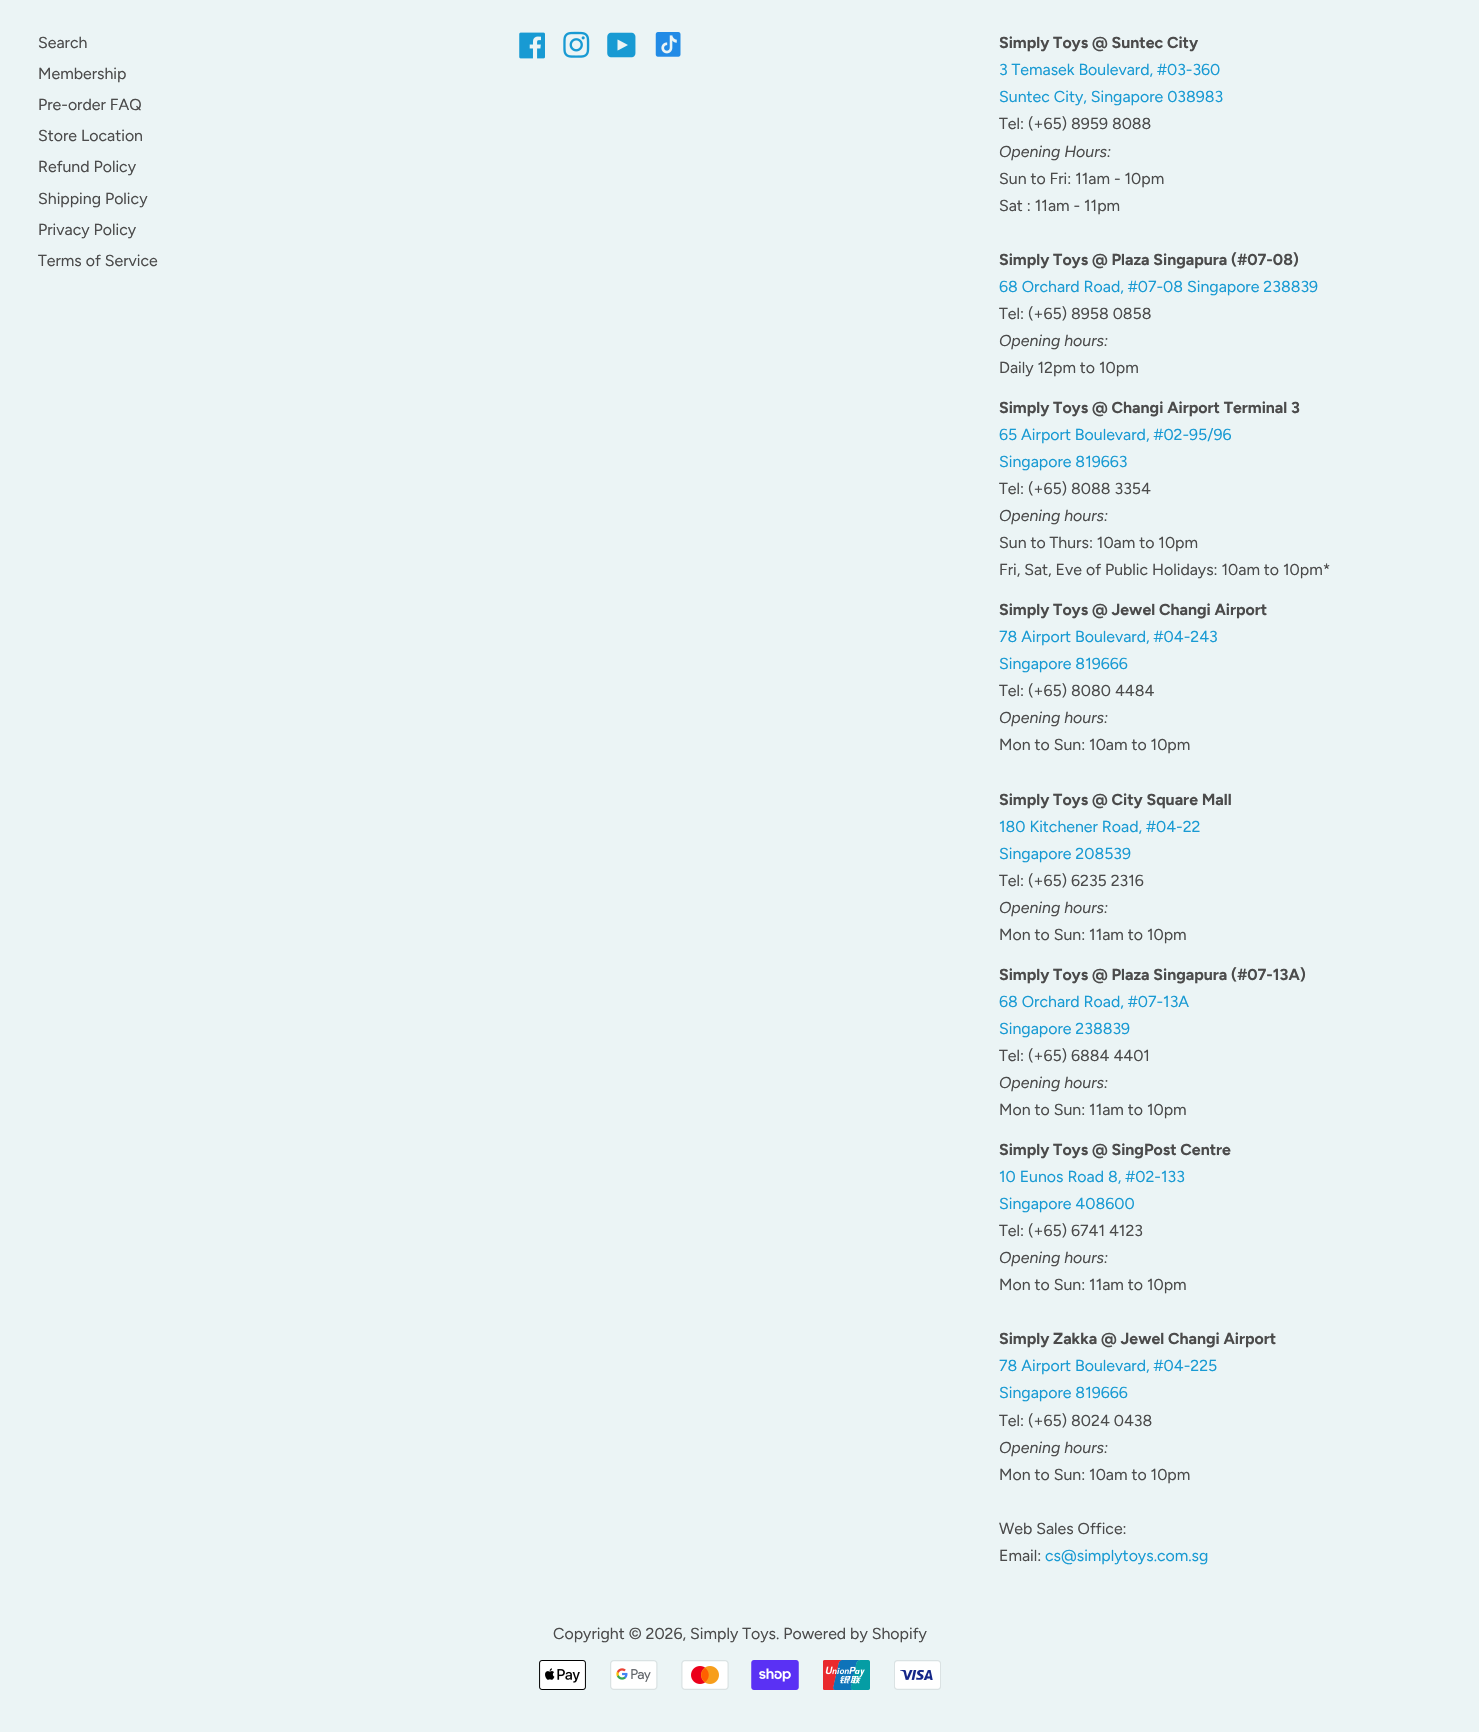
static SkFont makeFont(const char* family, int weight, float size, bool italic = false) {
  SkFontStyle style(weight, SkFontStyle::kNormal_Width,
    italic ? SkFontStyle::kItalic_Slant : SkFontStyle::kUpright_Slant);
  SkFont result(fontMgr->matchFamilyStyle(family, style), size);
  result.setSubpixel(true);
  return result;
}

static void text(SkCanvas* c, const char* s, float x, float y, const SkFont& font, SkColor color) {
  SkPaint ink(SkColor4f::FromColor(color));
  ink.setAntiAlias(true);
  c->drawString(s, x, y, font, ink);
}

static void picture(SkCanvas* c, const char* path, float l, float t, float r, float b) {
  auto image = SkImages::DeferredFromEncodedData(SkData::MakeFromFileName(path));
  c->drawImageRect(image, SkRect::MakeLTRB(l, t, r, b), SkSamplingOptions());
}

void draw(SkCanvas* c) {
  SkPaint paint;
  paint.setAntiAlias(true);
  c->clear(0xffebf4f5);
  SkFont face1 = makeFont("Figtree", 400, 15.9f);
  text(c, "Search", 38, 48, face1, 0xff4b4b4b);
  text(c, "Membership", 38, 79, face1, 0xff4b4b4b);
  text(c, "Pre-order FAQ", 38, 110, face1, 0xff4b4b4b);
  text(c, "Store Location", 38, 141, face1, 0xff4b4b4b);
  text(c, "Refund Policy", 38, 172, face1, 0xff4b4b4b);
  text(c, "Shipping Policy", 38, 204, face1, 0xff4b4b4b);
  text(c, "Privacy Policy", 38, 235, face1, 0xff4b4b4b);
  text(c, "Terms of Service", 38, 266, face1, 0xff4b4b4b);
  picture(c, "img_01.png", 519, 32, 545, 59);
  picture(c, "img_02.png", 563, 31, 590, 58);
  picture(c, "img_03.png", 607, 32, 636, 58);
  picture(c, "img_04.png", 655, 32, 681, 57);
  SkFont face2 = makeFont("Figtree", 700, 15.9f);
  text(c, "Simply Toys @ Suntec City", 999, 48, face2, 0xff4b4b4b);
  text(c, "3 Temasek Boulevard, #03-360", 999, 75, face1, 0xff189ad3);
  text(c, "Suntec City, Singapore 038983", 999, 102, face1, 0xff189ad3);
  text(c, "Tel: (+65) 8959 8088", 999, 129, face1, 0xff4b4b4b);
  SkFont face3 = makeFont("Figtree", 400, 15.9f, true);
  text(c, "Opening Hours:", 999, 157, face3, 0xff4b4b4b);
  text(c, "Sun to Fri: 11am - 10pm", 999, 184, face1, 0xff4b4b4b);
  text(c, "Sat : 11am - 11pm", 999, 211, face1, 0xff4b4b4b);
  text(c, "Simply Toys @ Plaza Singapura (#07-08)", 999, 265, face2, 0xff4b4b4b);
  text(c, "68 Orchard Road, #07-08 Singapore 238839", 999, 292, face1, 0xff189ad3);
  text(c, "Tel: (+65) 8958 0858", 999, 319, face1, 0xff4b4b4b);
  text(c, "Opening hours:", 999, 346, face3, 0xff4b4b4b);
  text(c, "Daily 12pm to 10pm", 999, 373, face1, 0xff4b4b4b);
  text(c, "Simply Toys @ Changi Airport Terminal 3", 999, 413, face2, 0xff4b4b4b);
  text(c, "65 Airport Boulevard, #02-95/96", 999, 440, face1, 0xff189ad3);
  text(c, "Singapore 819663", 999, 467, face1, 0xff189ad3);
  text(c, "Tel: (+65) 8088 3354", 999, 494, face1, 0xff4b4b4b);
  text(c, "Opening hours:", 999, 521, face3, 0xff4b4b4b);
  text(c, "Sun to Thurs: 10am to 10pm", 999, 548, face1, 0xff4b4b4b);
  text(c, "Fri, Sat, Eve of Public Holidays: 10am to 10pm*", 999, 575, face1, 0xff4b4b4b);
  text(c, "Simply Toys @ Jewel Changi Airport", 999, 615, face2, 0xff4b4b4b);
  text(c, "78 Airport Boulevard, #04-243", 999, 642, face1, 0xff189ad3);
  text(c, "Singapore 819666", 999, 669, face1, 0xff189ad3);
  text(c, "Tel: (+65) 8080 4484", 999, 696, face1, 0xff4b4b4b);
  text(c, "Opening hours:", 999, 723, face3, 0xff4b4b4b);
  text(c, "Mon to Sun: 10am to 10pm", 999, 750, face1, 0xff4b4b4b);
  text(c, "Simply Toys @ City Square Mall", 999, 805, face2, 0xff4b4b4b);
  text(c, "180 Kitchener Road, #04-22", 999, 832, face1, 0xff189ad3);
  text(c, "Singapore 208539", 999, 859, face1, 0xff189ad3);
  text(c, "Tel: (+65) 6235 2316", 999, 886, face1, 0xff4b4b4b);
  text(c, "Opening hours:", 999, 913, face3, 0xff4b4b4b);
  text(c, "Mon to Sun: 11am to 10pm", 999, 940, face1, 0xff4b4b4b);
  text(c, "Simply Toys @ Plaza Singapura (#07-13A)", 999, 980, face2, 0xff4b4b4b);
  text(c, "68 Orchard Road, #07-13A", 999, 1007, face1, 0xff189ad3);
  text(c, "Singapore 238839", 999, 1034, face1, 0xff189ad3);
  text(c, "Tel: (+65) 6884 4401", 999, 1061, face1, 0xff4b4b4b);
  text(c, "Opening hours:", 999, 1088, face3, 0xff4b4b4b);
  text(c, "Mon to Sun: 11am to 10pm", 999, 1115, face1, 0xff4b4b4b);
  text(c, "Simply Toys @ SingPost Centre", 999, 1155, face2, 0xff4b4b4b);
  text(c, "10 Eunos Road 8, #02-133", 999, 1182, face1, 0xff189ad3);
  text(c, "Singapore 408600", 999, 1209, face1, 0xff189ad3);
  text(c, "Tel: (+65) 6741 4123", 999, 1236, face1, 0xff4b4b4b);
  text(c, "Opening hours:", 999, 1263, face3, 0xff4b4b4b);
  text(c, "Mon to Sun: 11am to 10pm", 999, 1290, face1, 0xff4b4b4b);
  text(c, "Simply Zakka @ Jewel Changi Airport", 999, 1344, face2, 0xff4b4b4b);
  text(c, "78 Airport Boulevard, #04-225", 999, 1371, face1, 0xff189ad3);
  text(c, "Singapore 819666", 999, 1398, face1, 0xff189ad3);
  text(c, "Tel: (+65) 8024 0438", 999, 1426, face1, 0xff4b4b4b);
  text(c, "Opening hours:", 999, 1453, face3, 0xff4b4b4b);
  text(c, "Mon to Sun: 10am to 10pm", 999, 1480, face1, 0xff4b4b4b);
  text(c, "Web Sales Office:", 999, 1534, face1, 0xff4b4b4b);
  text(c, "Email:", 999, 1561, face1, 0xff4b4b4b);
  text(c, "cs@simplytoys.com.sg", 1045, 1561, face1, 0xff189ad3);
  text(c, "Copyright © 2026, Simply Toys. Powered by Shopify", 553, 1639, face1, 0xff4b4b4b);
  picture(c, "img_05.png", 539, 1660, 586, 1690);
  picture(c, "img_06.png", 610, 1660, 658, 1690);
  picture(c, "img_07.png", 681, 1660, 729, 1690);
  picture(c, "img_08.png", 751, 1660, 799, 1690);
  picture(c, "img_09.png", 823, 1660, 870, 1690);
  picture(c, "img_10.png", 894, 1660, 941, 1690);
}
